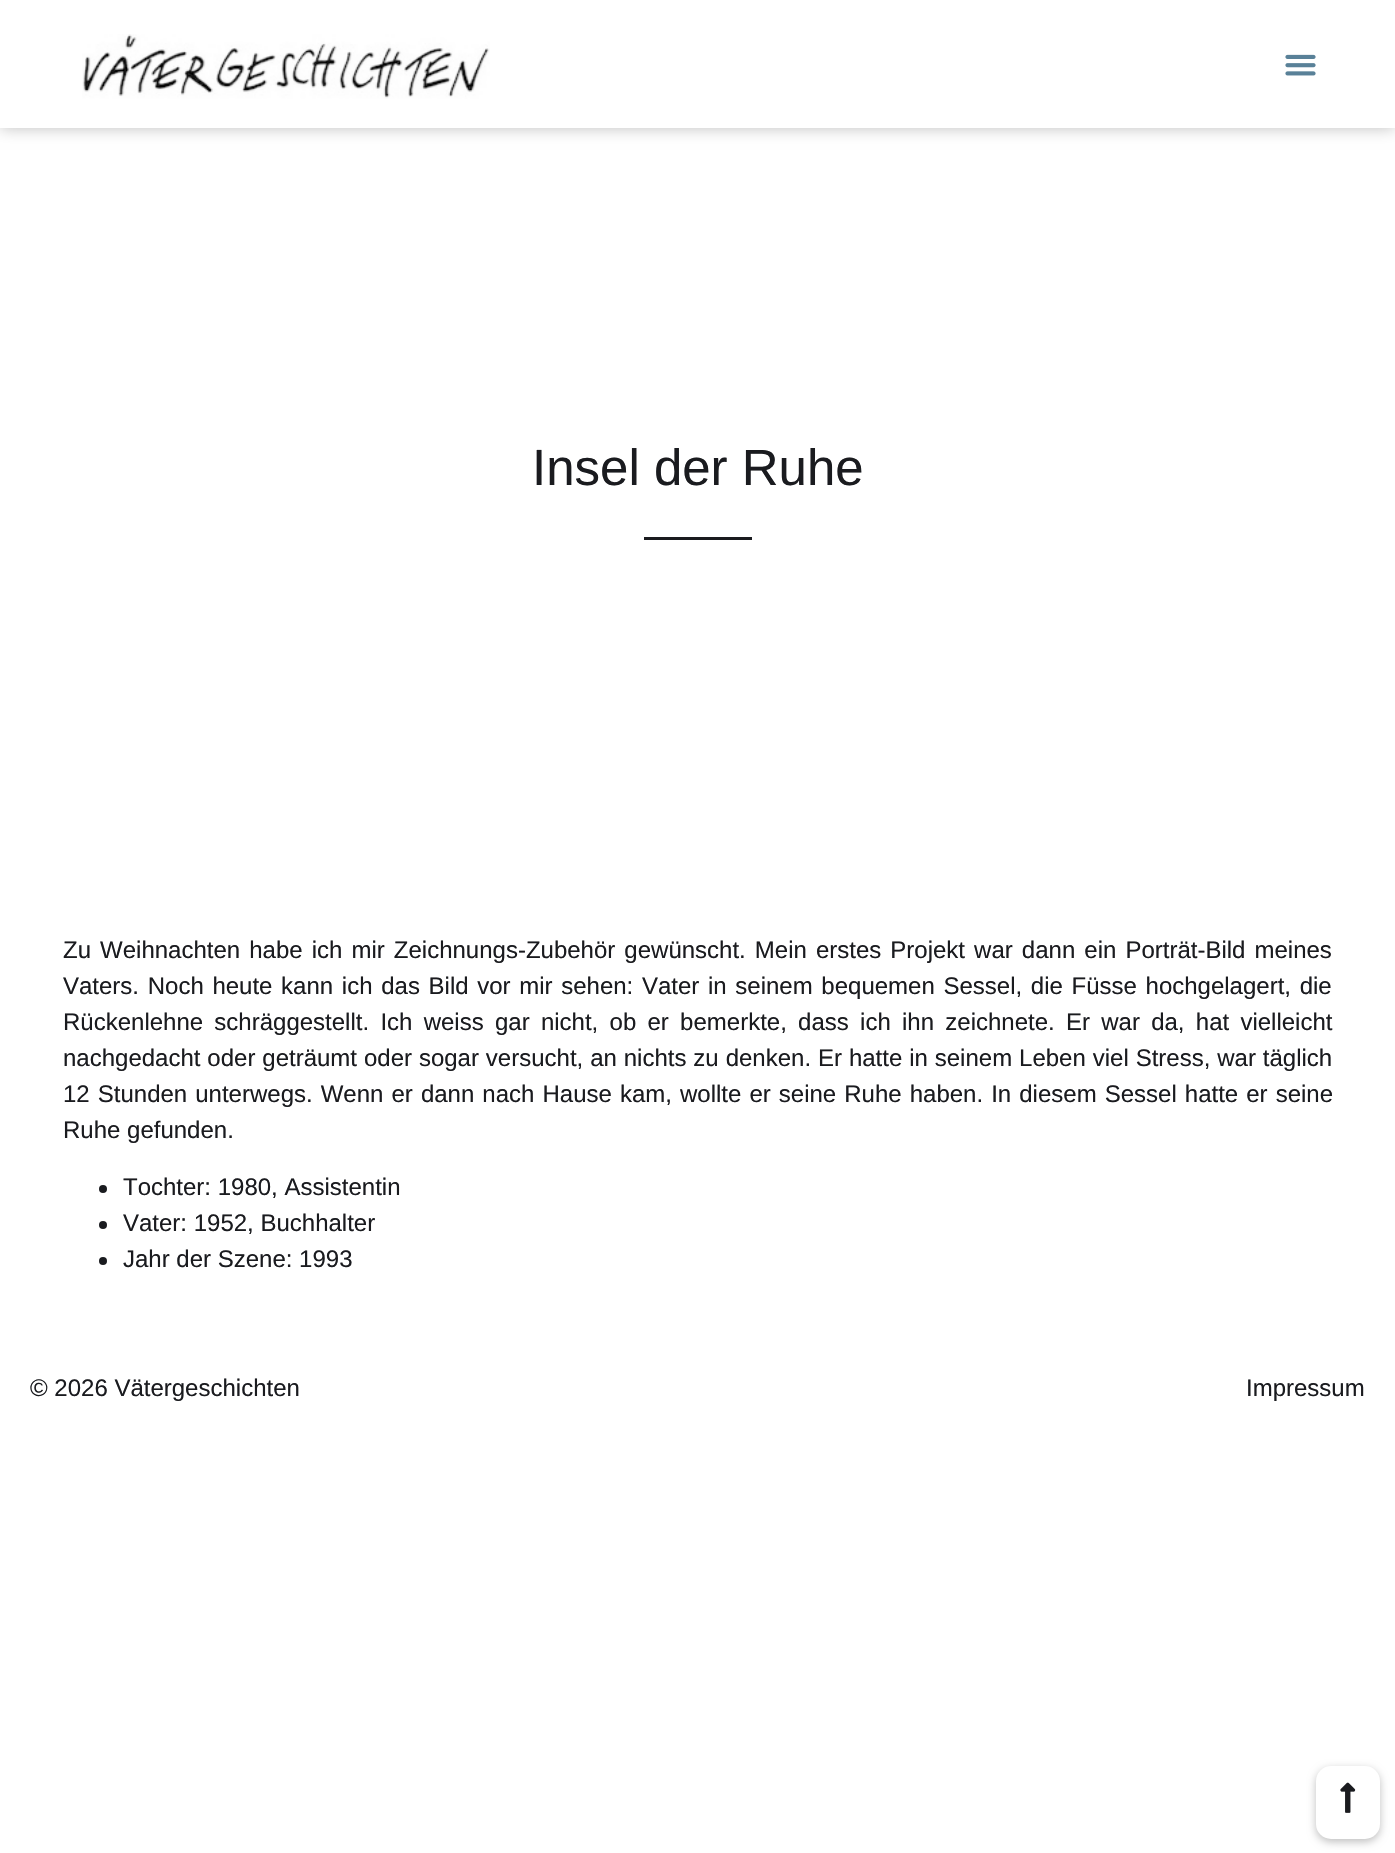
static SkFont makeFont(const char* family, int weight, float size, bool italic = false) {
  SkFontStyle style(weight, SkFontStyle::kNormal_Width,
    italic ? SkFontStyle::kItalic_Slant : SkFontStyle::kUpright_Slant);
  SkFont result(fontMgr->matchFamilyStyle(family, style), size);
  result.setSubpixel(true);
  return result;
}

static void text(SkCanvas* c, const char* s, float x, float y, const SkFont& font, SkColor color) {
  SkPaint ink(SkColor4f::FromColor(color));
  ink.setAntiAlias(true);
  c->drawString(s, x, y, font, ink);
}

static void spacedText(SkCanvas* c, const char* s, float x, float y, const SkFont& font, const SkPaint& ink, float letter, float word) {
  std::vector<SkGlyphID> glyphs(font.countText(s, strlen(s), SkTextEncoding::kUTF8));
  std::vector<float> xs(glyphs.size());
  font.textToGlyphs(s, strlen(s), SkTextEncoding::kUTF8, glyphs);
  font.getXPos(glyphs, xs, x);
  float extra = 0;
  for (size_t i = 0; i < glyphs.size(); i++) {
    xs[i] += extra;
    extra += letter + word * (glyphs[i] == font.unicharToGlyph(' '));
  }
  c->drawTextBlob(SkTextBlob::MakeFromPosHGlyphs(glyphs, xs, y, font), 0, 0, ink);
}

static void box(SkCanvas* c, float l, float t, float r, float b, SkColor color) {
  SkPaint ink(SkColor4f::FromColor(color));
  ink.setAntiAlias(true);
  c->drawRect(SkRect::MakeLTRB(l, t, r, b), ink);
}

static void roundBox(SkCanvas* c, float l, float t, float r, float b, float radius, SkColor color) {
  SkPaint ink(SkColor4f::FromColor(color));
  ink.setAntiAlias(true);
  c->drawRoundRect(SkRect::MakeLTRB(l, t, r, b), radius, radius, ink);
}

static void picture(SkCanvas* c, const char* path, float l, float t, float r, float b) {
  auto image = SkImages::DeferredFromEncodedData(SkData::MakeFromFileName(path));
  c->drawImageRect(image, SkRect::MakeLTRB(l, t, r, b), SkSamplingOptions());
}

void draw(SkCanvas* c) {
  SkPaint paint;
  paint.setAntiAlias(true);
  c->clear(0xffffffff);
  paint.setColor(0x40000000);
  paint.setMaskFilter(SkMaskFilter::MakeBlur(kNormal_SkBlurStyle, 7.5f));
  c->drawRect(SkRect::MakeLTRB(0, 0, 1395, 128), paint);
  paint.setMaskFilter(nullptr);
  box(c, 0, 0, 1395, 128, 0xffffffff);
  picture(c, "img_01.png", 82, 34, 490, 99);
  picture(c, "img_02.png", 1285, 54, 1316, 76);
  SkFont face1 = makeFont("Liberation Sans", 400, 51);
  text(c, "Insel der Ruhe", 532, 485, face1, 0xff1a1b1f);
  box(c, 644, 537, 752, 540, 0xff1a1b1f);
  SkFont face2 = makeFont("Liberation Sans", 400, 24);
  paint.setColor(0xff1a1b1f);
  spacedText(c, "Zu Weihnachten habe ich mir Zeichnungs-Zubehör gewünscht. Mein erstes Projekt war dann ein Porträt-Bild meines", 63, 958, face2, paint, 0, 2.4f);
  spacedText(c, "Vaters. Noch heute kann ich das Bild vor mir sehen: Vater in seinem bequemen Sessel, die Füsse hochgelagert, die", 63, 994, face2, paint, 0, 2);
  spacedText(c, "Rückenlehne schräggestellt. Ich weiss gar nicht, ob er bemerkte, dass ich ihn zeichnete. Er war da, hat vielleicht", 63, 1030, face2, paint, 0, 4.6f);
  spacedText(c, "nachgedacht oder geträumt oder sogar versucht, an nichts zu denken. Er hatte in seinem Leben viel Stress, war täglich", 63, 1066, face2, paint, 0, 0.25f);
  spacedText(c, "12 Stunden unterwegs. Wenn er dann nach Hause kam, wollte er seine Ruhe haben. In diesem Sessel hatte er seine", 63, 1102, face2, paint, 0, 1.4f);
  text(c, "Ruhe gefunden.", 63, 1138, face2, 0xff1a1b1f);
  c->drawCircle(103, 1189, 4, paint);
  text(c, "Tochter: 1980, Assistentin", 123, 1195, face2, 0xff1a1b1f);
  c->drawCircle(103, 1225, 4, paint);
  text(c, "Vater: 1952, Buchhalter", 123, 1231, face2, 0xff1a1b1f);
  c->drawCircle(103, 1261, 4, paint);
  text(c, "Jahr der Szene: 1993", 123, 1267, face2, 0xff1a1b1f);
  text(c, "© 2026 Vätergeschichten", 30, 1396, face2, 0xff1a1b1f);
  paint.setColor(0x40000000);
  paint.setMaskFilter(SkMaskFilter::MakeBlur(kNormal_SkBlurStyle, 4.5f));
  c->drawRoundRect(SkRect::MakeLTRB(1316, 1769, 1380, 1842), 15, 15, paint);
  paint.setMaskFilter(nullptr);
  roundBox(c, 1316, 1766, 1380, 1839, 15, 0xffffffff);
  picture(c, "img_03.png", 1340, 1782, 1356, 1813);
  text(c, "Impressum", 1246, 1396, face2, 0xff1a1b1f);
}
